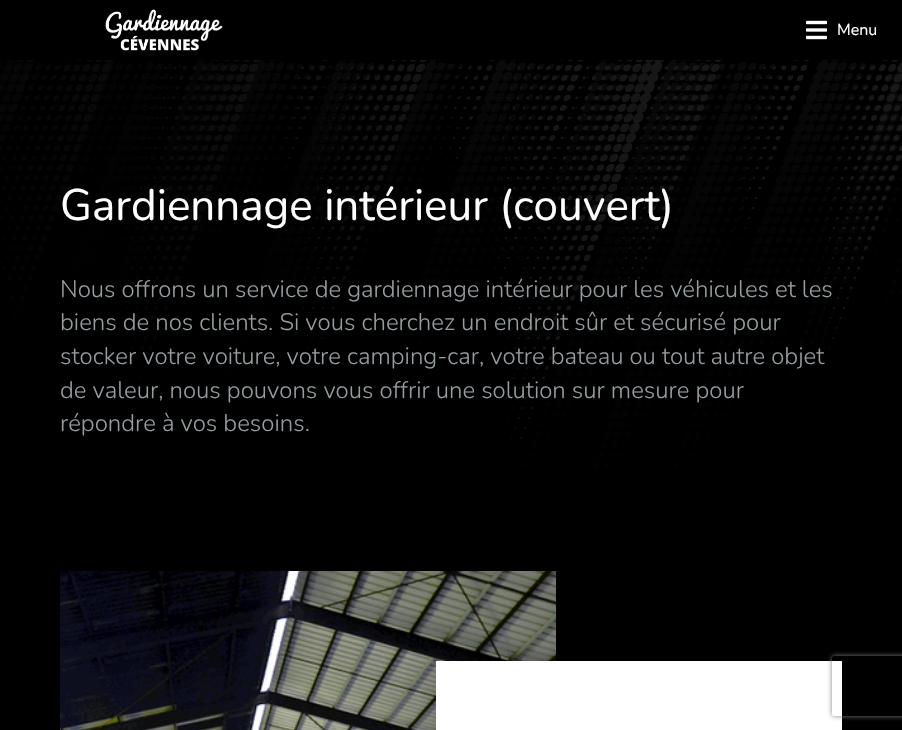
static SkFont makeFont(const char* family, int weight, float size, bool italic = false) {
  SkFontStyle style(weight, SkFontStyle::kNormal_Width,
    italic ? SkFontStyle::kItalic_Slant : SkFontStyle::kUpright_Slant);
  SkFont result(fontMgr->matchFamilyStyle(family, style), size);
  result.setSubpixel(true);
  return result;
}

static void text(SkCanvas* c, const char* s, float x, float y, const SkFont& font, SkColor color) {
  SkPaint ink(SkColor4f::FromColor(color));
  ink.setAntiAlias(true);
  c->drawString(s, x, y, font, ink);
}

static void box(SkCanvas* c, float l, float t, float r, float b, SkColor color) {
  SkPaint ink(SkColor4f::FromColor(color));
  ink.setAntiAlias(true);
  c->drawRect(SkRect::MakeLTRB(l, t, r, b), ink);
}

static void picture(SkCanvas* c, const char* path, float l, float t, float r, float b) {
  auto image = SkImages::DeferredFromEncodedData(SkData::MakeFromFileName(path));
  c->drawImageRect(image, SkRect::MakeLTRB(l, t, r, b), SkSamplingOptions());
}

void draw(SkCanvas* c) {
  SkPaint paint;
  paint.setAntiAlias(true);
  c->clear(0xff000000);
  picture(c, "img_01.png", 0, 60, 902, 469);
  picture(c, "img_02.png", 105, 9, 223, 51);
  picture(c, "img_03.png", 806, 20, 827, 40);
  SkFont face1 = makeFont("Nunito", 200, 16);
  text(c, "Menu", 837, 35, face1, 0xffffffff);
  SkFont face2 = makeFont("Nunito", 200, 44);
  text(c, "Gardiennage intérieur (couvert)", 60, 220, face2, 0xffffffff);
  SkFont face3 = makeFont("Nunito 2", 200, 24);
  text(c, "Nous offrons un service de gardiennage intérieur pour les véhicules et les", 60, 297, face3, 0xff959ca0);
  text(c, "biens de nos clients. Si vous cherchez un endroit sûr et sécurisé pour", 60, 330, face3, 0xff959ca0);
  text(c, "stocker votre voiture, votre camping-car, votre bateau ou tout autre objet", 60, 364, face3, 0xff959ca0);
  text(c, "de valeur, nous pouvons vous offrir une solution sur mesure pour", 60, 398, face3, 0xff959ca0);
  text(c, "répondre à vos besoins.", 60, 431, face3, 0xff959ca0);
  picture(c, "img_04.png", 60, 571, 556, 730);
  paint.setColor(0x26000000);
  paint.setMaskFilter(SkMaskFilter::MakeBlur(kNormal_SkBlurStyle, 10));
  c->drawRect(SkRect::MakeLTRB(436, 661, 842, 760), paint);
  paint.setMaskFilter(nullptr);
  box(c, 436, 661, 842, 730, 0xffffffff);
  c->save();
  c->clipPath(SkPathBuilder(SkPathFillType::kEvenOdd).moveTo(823, 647).lineTo(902, 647).lineTo(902, 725).lineTo(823, 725).close().moveTo(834, 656).lineTo(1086, 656).cubicTo(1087, 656, 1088, 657, 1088, 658).lineTo(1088, 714).cubicTo(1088, 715, 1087, 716, 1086, 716).lineTo(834, 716).cubicTo(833, 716, 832, 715, 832, 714).lineTo(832, 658).cubicTo(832, 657, 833, 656, 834, 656).close().detach(), true);
  paint.setColor(0xff808080);
  paint.setMaskFilter(SkMaskFilter::MakeBlur(kNormal_SkBlurStyle, 2.5f));
  c->drawRoundRect(SkRect::MakeLTRB(832, 656, 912, 716), 2, 2, paint);
  paint.setMaskFilter(nullptr);
  c->restore();
}
